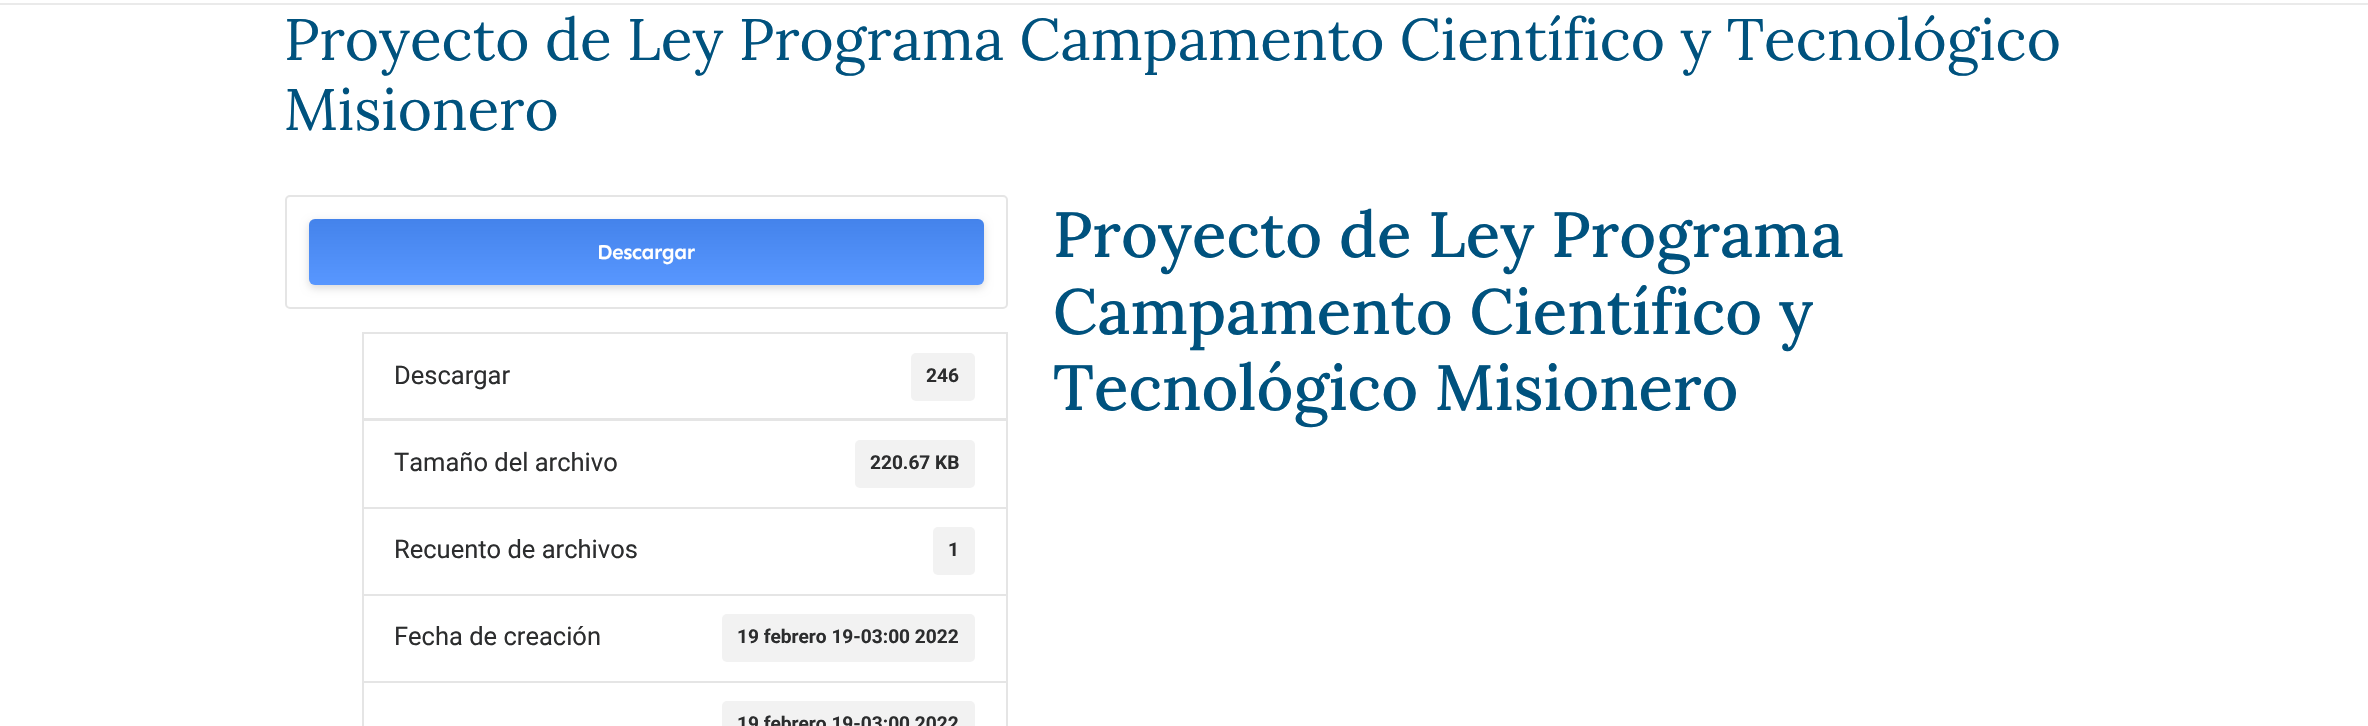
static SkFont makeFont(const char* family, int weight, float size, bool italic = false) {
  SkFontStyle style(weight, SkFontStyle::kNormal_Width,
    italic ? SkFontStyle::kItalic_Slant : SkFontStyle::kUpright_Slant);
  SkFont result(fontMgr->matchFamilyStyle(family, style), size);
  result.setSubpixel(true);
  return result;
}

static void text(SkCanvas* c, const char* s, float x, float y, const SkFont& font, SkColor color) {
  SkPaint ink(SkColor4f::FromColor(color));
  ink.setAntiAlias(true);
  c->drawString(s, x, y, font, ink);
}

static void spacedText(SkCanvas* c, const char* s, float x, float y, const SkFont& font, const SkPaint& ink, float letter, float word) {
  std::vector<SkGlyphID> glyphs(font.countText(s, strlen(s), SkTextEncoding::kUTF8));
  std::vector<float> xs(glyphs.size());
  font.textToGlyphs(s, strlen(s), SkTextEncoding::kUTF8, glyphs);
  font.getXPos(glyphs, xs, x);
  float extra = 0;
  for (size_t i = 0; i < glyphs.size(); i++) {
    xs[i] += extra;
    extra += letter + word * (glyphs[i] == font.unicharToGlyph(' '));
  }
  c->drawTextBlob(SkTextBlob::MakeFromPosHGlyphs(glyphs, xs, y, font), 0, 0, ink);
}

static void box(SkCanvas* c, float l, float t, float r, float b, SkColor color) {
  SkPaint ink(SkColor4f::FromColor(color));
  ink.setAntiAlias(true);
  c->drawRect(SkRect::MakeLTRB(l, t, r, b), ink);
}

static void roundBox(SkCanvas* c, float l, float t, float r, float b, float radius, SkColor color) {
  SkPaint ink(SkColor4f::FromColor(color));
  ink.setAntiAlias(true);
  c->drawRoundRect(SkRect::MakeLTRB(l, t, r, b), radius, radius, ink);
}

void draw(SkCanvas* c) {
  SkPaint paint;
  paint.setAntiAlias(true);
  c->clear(0xffffffff);
  box(c, 0, 3, 2368, 5, 0xffeaeaea);
  SkFont face1 = makeFont("Lora", 400, 58.5f);
  text(c, "Proyecto de Ley Programa Campamento Científico y Tecnológico", 284, 60, face1, 0xff00527e);
  text(c, "Misionero", 284, 130, face1, 0xff00527e);
  paint.setStyle(SkPaint::kStroke_Style);
  paint.setStrokeWidth(2);
  paint.setColor(0xffe5e5e5);
  c->drawRoundRect(SkRect::MakeLTRB(286, 196, 1007, 308), 4, 4, paint);
  paint.setStyle(SkPaint::kFill_Style);
  paint.setColor(0x26000000);
  paint.setMaskFilter(SkMaskFilter::MakeBlur(kNormal_SkBlurStyle, 4.5f));
  c->drawRoundRect(SkRect::MakeLTRB(309, 222, 984, 288), 6, 6, paint);
  paint.setMaskFilter(nullptr);
  roundBox(c, 309, 219, 984, 285, 6, 0xff4a8eff);
  {
    const SkColor colors[] = {0x14000000, 0x14ffffff};
    const float stops[] = {0, 1};
    const SkPoint ends[] = {{647, 219}, {647, 285}};
    paint.setShader(SkGradientShader::MakeLinear(ends, colors, stops, 2, SkTileMode::kClamp));
    paint.setAlpha(255);
  }
  c->drawRoundRect(SkRect::MakeLTRB(309, 219, 984, 285), 6, 6, paint);
  SkFont face2 = makeFont("Sen", 600, 21);
  paint.setShader(nullptr);
  paint.setColor(0xffffffff);
  spacedText(c, "Descargar", 597, 259, face2, paint, -0.5f, 0);
  paint.setStyle(SkPaint::kStroke_Style);
  paint.setColor(0xffe5e5e5);
  c->drawRect(SkRect::MakeLTRB(363, 333, 1007, 419), paint);
  SkFont face3 = makeFont("Roboto", 400, 25.5f);
  text(c, "Descargar", 394, 384, face3, 0xff2c2d2e);
  roundBox(c, 911, 353, 975, 401, 5, 0xfff2f2f2);
  SkFont face4 = makeFont("Roboto", 700, 19.1f);
  text(c, "246", 926, 382, face4, 0xff2c2d2e);
  c->drawRect(SkRect::MakeLTRB(363, 420, 1007, 508), paint);
  text(c, "Tamaño del archivo", 394, 471, face3, 0xff2c2d2e);
  roundBox(c, 855, 440, 975, 488, 5, 0xfff2f2f2);
  text(c, "220.67 KB", 870, 469, face4, 0xff2c2d2e);
  c->drawRect(SkRect::MakeLTRB(363, 508, 1007, 595), paint);
  text(c, "Recuento de archivos", 394, 558, face3, 0xff2c2d2e);
  roundBox(c, 933, 527, 975, 575, 5, 0xfff2f2f2);
  text(c, "1", 948, 556, face4, 0xff2c2d2e);
  c->drawRect(SkRect::MakeLTRB(363, 595, 1007, 682), paint);
  text(c, "Fecha de creación", 394, 645, face3, 0xff2c2d2e);
  roundBox(c, 722, 614, 975, 662, 5, 0xfff2f2f2);
  text(c, "19 febrero 19-03:00 2022", 737, 643, face4, 0xff2c2d2e);
  c->drawRect(SkRect::MakeLTRB(363, 682, 1007, 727), paint);
  roundBox(c, 722, 701, 975, 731, 5, 0xfff2f2f2);
  text(c, "19 febrero 19-03:00 2022", 737, 730, face4, 0xff2c2d2e);
  SkFont face5 = makeFont("Lora", 500, 63.75f);
  text(c, "Proyecto de Ley Programa", 1053, 257, face5, 0xff00527e);
  text(c, "Campamento Científico y", 1053, 334, face5, 0xff00527e);
  text(c, "Tecnológico Misionero", 1053, 410, face5, 0xff00527e);
}
